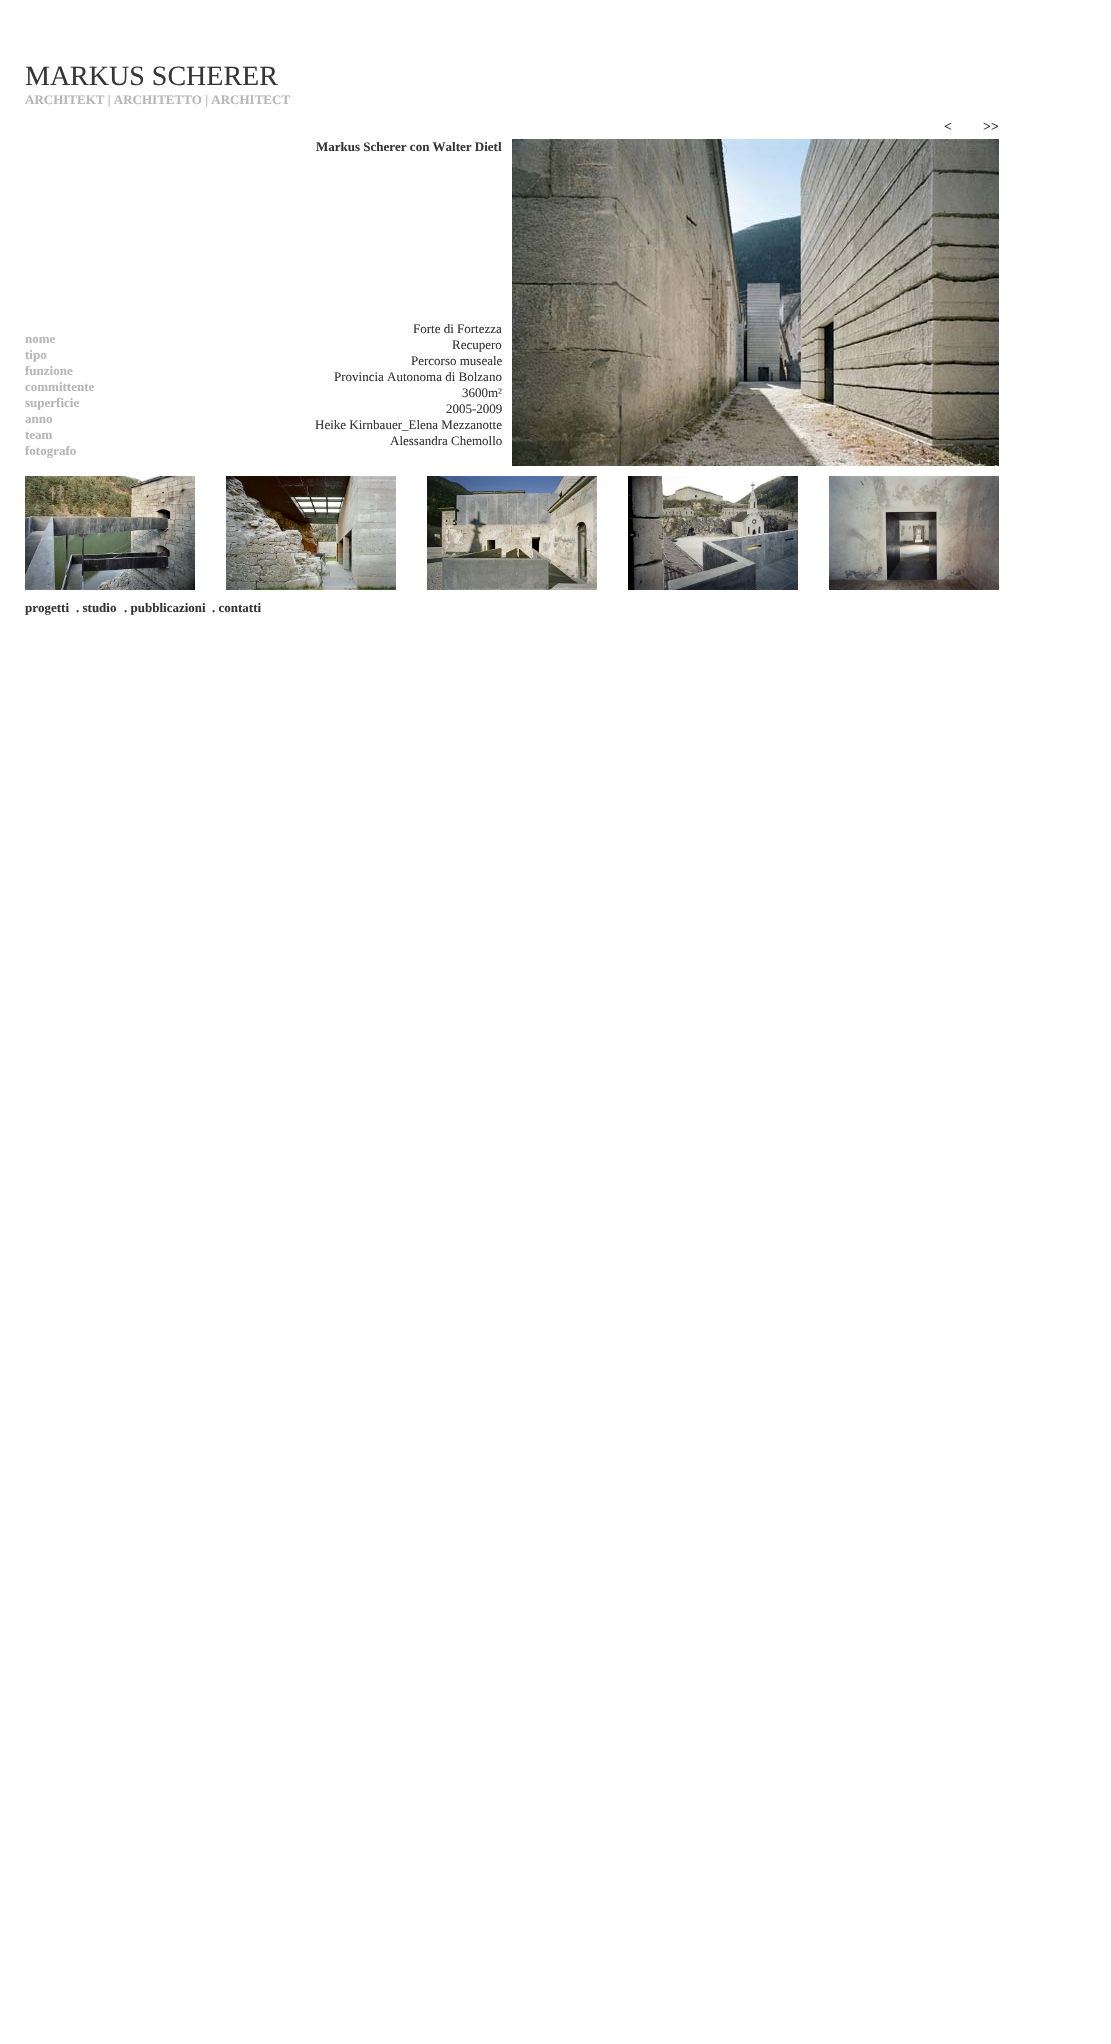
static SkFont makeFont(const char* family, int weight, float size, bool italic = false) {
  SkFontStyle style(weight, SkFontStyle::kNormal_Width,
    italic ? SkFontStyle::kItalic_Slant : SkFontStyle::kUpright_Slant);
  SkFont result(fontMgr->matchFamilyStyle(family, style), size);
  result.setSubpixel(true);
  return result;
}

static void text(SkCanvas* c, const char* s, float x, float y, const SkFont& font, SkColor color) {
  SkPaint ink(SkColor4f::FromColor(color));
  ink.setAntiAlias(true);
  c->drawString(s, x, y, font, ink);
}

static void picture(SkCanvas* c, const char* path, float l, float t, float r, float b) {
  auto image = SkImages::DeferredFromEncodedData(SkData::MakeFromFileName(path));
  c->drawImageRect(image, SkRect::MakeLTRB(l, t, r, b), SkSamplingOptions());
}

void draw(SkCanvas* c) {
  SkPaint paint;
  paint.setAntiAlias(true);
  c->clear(0xffffffff);
  SkFont face1 = makeFont("Liberation Serif", 400, 28);
  text(c, "MARKUS SCHERER", 25, 85, face1, 0xff363636);
  SkFont face2 = makeFont("Liberation Serif", 700, 13);
  text(c, "ARCHITEKT | ARCHITETTO | ARCHITECT", 25, 104, face2, 0xffb7b7b7);
  SkFont face3 = makeFont("Liberation Serif", 700, 14);
  text(c, "<", 944, 131, face3, 0xff363636);
  text(c, ">>", 983, 131, face3, 0xff363636);
  text(c, "nome", 25, 343, face2, 0xffb7b7b7);
  text(c, "tipo", 25, 359, face2, 0xffb7b7b7);
  text(c, "funzione", 25, 375, face2, 0xffb7b7b7);
  text(c, "committente", 25, 391, face2, 0xffb7b7b7);
  text(c, "superficie", 25, 407, face2, 0xffb7b7b7);
  text(c, "anno", 25, 423, face2, 0xffb7b7b7);
  text(c, "team", 25, 439, face2, 0xffb7b7b7);
  text(c, "fotografo", 25, 455, face2, 0xffb7b7b7);
  text(c, "Markus Scherer con Walter Dietl", 316, 151, face2, 0xff363636);
  SkFont face4 = makeFont("Liberation Serif", 400, 13);
  text(c, "Forte di Fortezza", 413, 333, face4, 0xff363636);
  text(c, "Recupero", 452, 349, face4, 0xff363636);
  text(c, "Percorso museale", 411, 365, face4, 0xff363636);
  text(c, "Provincia Autonoma di Bolzano", 334, 381, face4, 0xff363636);
  text(c, "3600m²", 462, 397, face4, 0xff363636);
  text(c, "2005-2009", 446, 413, face4, 0xff363636);
  text(c, "Heike Kirnbauer_Elena Mezzanotte", 315, 429, face4, 0xff363636);
  text(c, "Alessandra Chemollo", 390, 445, face4, 0xff363636);
  picture(c, "img_01.png", 512, 139, 999, 466);
  picture(c, "img_02.png", 25, 476, 195, 590);
  picture(c, "img_03.png", 226, 476, 396, 590);
  picture(c, "img_04.png", 427, 476, 597, 590);
  picture(c, "img_05.png", 628, 476, 798, 590);
  picture(c, "img_06.png", 829, 476, 999, 590);
  text(c, "progetti", 25, 612, face2, 0xff363636);
  text(c, ". studio", 76, 612, face2, 0xff363636);
  text(c, ". pubblicazioni", 124, 612, face2, 0xff363636);
  text(c, ". contatti", 212, 612, face2, 0xff363636);
}
